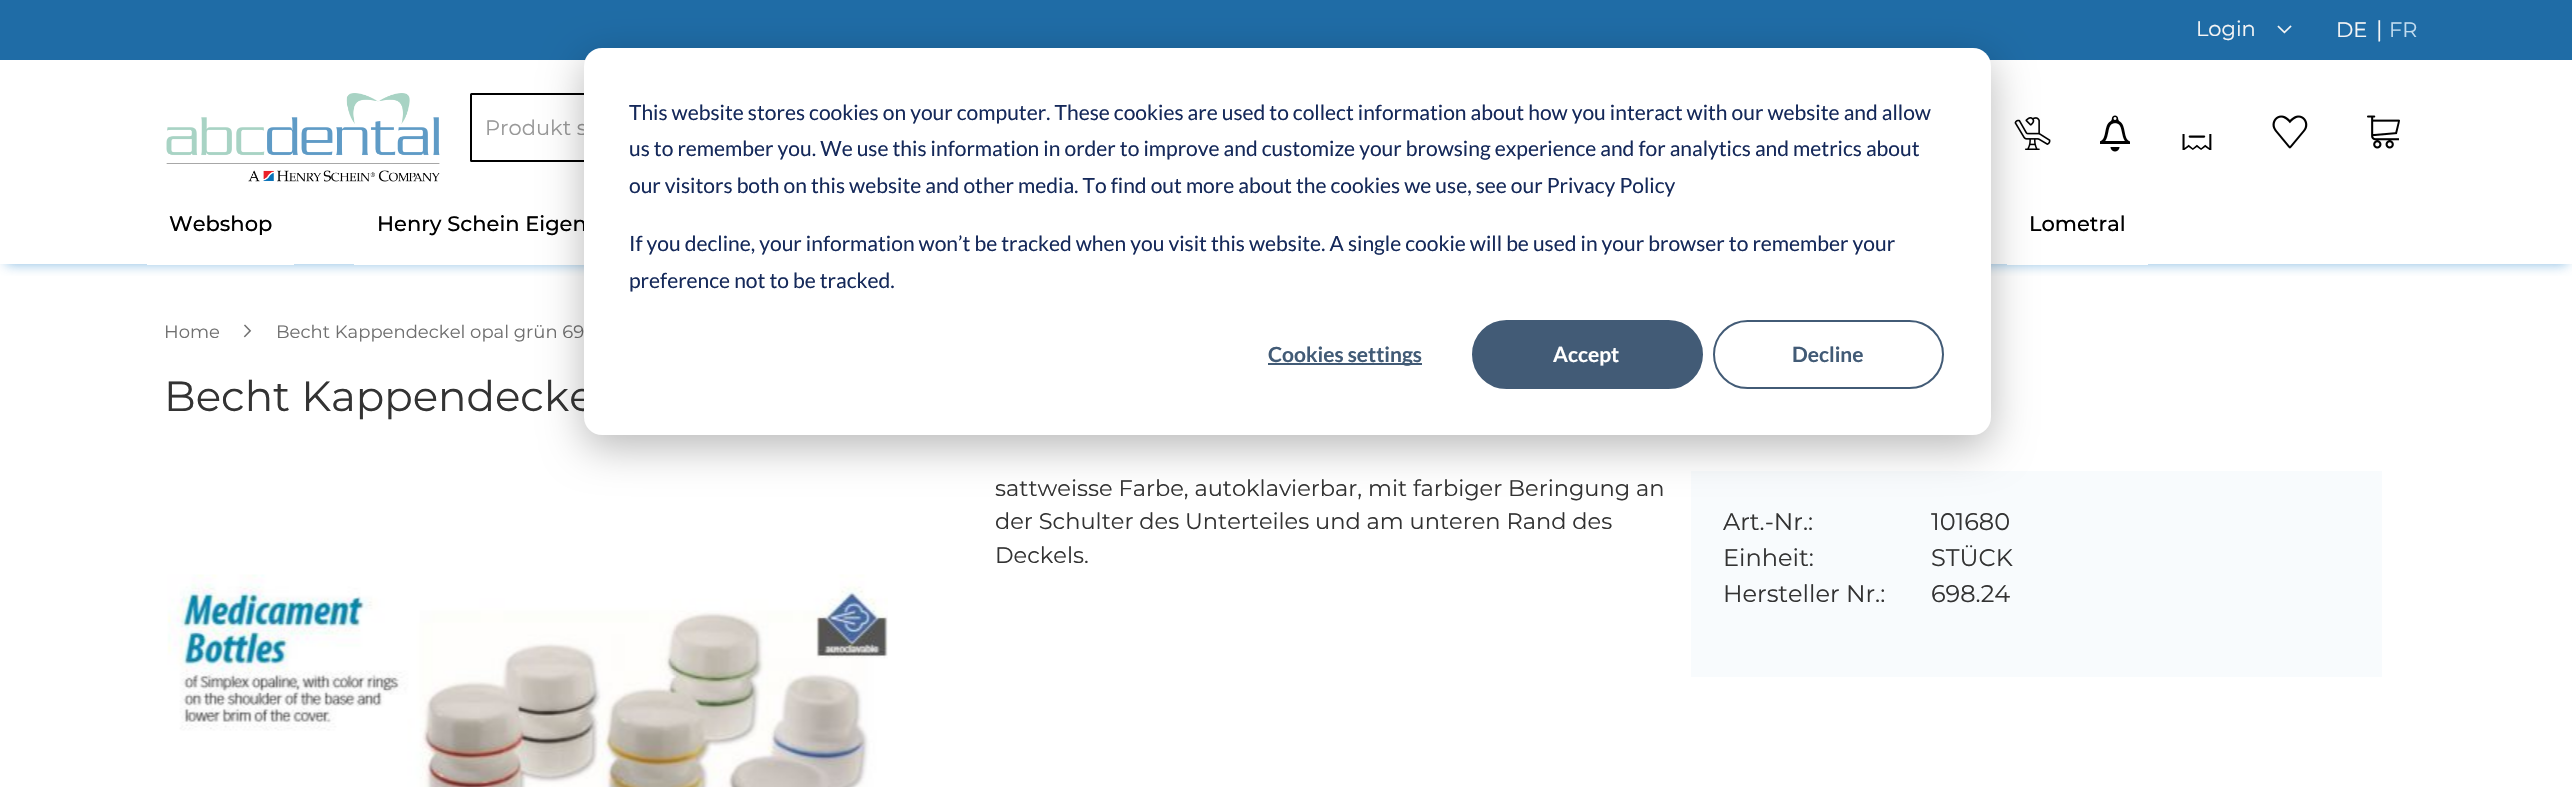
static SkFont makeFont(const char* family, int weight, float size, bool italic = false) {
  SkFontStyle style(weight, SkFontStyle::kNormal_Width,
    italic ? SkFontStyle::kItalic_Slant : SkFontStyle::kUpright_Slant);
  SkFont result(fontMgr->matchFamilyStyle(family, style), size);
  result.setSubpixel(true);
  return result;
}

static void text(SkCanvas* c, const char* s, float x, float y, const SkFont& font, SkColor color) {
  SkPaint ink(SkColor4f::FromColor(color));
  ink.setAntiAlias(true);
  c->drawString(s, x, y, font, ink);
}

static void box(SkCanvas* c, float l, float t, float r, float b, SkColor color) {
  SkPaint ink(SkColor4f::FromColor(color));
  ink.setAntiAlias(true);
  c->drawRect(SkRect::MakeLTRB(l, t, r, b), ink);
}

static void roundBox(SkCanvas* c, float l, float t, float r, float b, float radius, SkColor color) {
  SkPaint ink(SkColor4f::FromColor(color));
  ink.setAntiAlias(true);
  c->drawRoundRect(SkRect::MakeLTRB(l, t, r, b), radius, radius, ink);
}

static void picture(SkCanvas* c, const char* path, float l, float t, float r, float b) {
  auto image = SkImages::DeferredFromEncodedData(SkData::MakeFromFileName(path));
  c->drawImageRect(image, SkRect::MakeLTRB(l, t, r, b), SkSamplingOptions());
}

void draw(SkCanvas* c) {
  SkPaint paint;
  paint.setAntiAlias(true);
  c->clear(0xffffffff);
  box(c, 0, 0, 2572, 60, 0xff1f6ca6);
  SkFont face1 = makeFont("Montserrat", 400, 21);
  text(c, "Login", 2196, 36, face1, 0xfff5f5f5);
  picture(c, "img_01.png", 2277, 25, 2292, 34);
  text(c, "DE", 2336, 37, face1, 0xfff5f5f5);
  SkFont face2 = makeFont("Montserrat", 400, 22.5f);
  text(c, "|", 2376, 37, face2, 0xfff5f5f5);
  text(c, "FR", 2389, 37, face1, 0xffc0dbef);
  picture(c, "img_02.png", 166, 93, 440, 182);
  paint.setStyle(SkPaint::kStroke_Style);
  paint.setStrokeWidth(2);
  paint.setColor(0xff000000);
  c->drawRoundRect(SkRect::MakeLTRB(471, 94, 893, 161), 0.5f, 0.5f, paint);
  text(c, "Produkt s", 485, 135, face1, 0xff999999);
  picture(c, "img_03.png", 2014, 117, 2051, 150);
  picture(c, "img_04.png", 2100, 115, 2130, 152);
  picture(c, "img_05.png", 2272, 115, 2308, 149);
  picture(c, "img_06.png", 2367, 115, 2400, 149);
  picture(c, "img_07.png", 2182, 134, 2212, 150);
  c->save();
  c->clipRect(SkRect::MakeLTRB(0, 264, 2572, 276));
  paint.setStyle(SkPaint::kFill_Style);
  paint.setColor(0xcc63a6d9);
  paint.setMaskFilter(SkMaskFilter::MakeBlur(kNormal_SkBlurStyle, 6));
  c->drawRect(SkRect::MakeLTRB(6, 201, 2567, 264), paint);
  paint.setMaskFilter(nullptr);
  c->restore();
  box(c, 147, 264, 294, 265, 0xffffffff);
  SkFont face3 = makeFont("Montserrat", 500, 21);
  text(c, "Webshop", 169, 231, face3, 0xff000000);
  box(c, 354, 264, 584, 265, 0xffffffff);
  text(c, "Henry Schein Eigen", 377, 231, face3, 0xff000000);
  box(c, 2007, 264, 2148, 265, 0xffffffff);
  text(c, "Lometral", 2029, 231, face3, 0xff000000);
  SkFont face4 = makeFont("Montserrat", 400, 18);
  text(c, "Home", 164, 338, face4, 0xff707070);
  picture(c, "img_08.png", 243, 324, 252, 338);
  text(c, "Becht Kappendeckel opal grün 69", 276, 338, face4, 0xff707070);
  SkFont face5 = makeFont("Montserrat", 400, 42);
  text(c, "Becht Kappendecke", 164, 411, face5, 0xff333333);
  text(c, "sattweisse Farbe, autoklavierbar, mit farbiger Beringung an", 995, 496, face2, 0xff333333);
  text(c, "der Schulter des Unterteiles und am unteren Rand des", 995, 529, face2, 0xff333333);
  text(c, "Deckels.", 995, 563, face2, 0xff333333);
  box(c, 1691, 471, 2382, 677, 0xfff8fbfd);
  SkFont face6 = makeFont("Montserrat", 400, 24);
  text(c, "Art.-Nr.:", 1723, 530, face6, 0xff333333);
  text(c, "101680", 1931, 530, face6, 0xff333333);
  text(c, "Einheit:", 1723, 566, face6, 0xff333333);
  text(c, "STÜCK", 1931, 566, face6, 0xff333333);
  text(c, "Hersteller Nr.:", 1723, 602, face6, 0xff333333);
  text(c, "698.24", 1931, 602, face6, 0xff333333);
  picture(c, "img_09.png", 167, 574, 888, 787);
  paint.setColor(0x47000000);
  paint.setMaskFilter(SkMaskFilter::MakeBlur(kNormal_SkBlurStyle, 21));
  c->drawRoundRect(SkRect::MakeLTRB(584, 60, 1991, 447), 18, 18, paint);
  paint.setMaskFilter(nullptr);
  roundBox(c, 584, 48, 1991, 435, 18, 0xffffffff);
  SkFont face7 = makeFont("Lato", 400, 21);
  text(c, "This website stores cookies on your computer. These cookies are used to collect information about how you interact with our website and allow", 629, 120, face7, 0xff15295a);
  text(c, "us to remember you. We use this information in order to improve and customize your browsing experience and for analytics and metrics about", 629, 156, face7, 0xff15295a);
  text(c, "our visitors both on this website and other media. To find out more about the cookies we use, see our Privacy Policy", 629, 193, face7, 0xff15295a);
  text(c, "If you decline, your information won’t be tracked when you visit this website. A single cookie will be used in your browser to remember your", 629, 251, face7, 0xff15295a);
  text(c, "preference not to be tracked.", 629, 288, face7, 0xff15295a);
  box(c, 1268, 363, 1422, 365, 0xff425b76);
  SkFont face8 = makeFont("Lato", 700, 21);
  text(c, "Cookies settings", 1268, 362, face8, 0xff425b76);
  paint.setColor(0xff425b76);
  c->drawRoundRect(SkRect::MakeLTRB(1473, 321, 1702, 388), 33.5f, 33.5f, paint);
  paint.setStyle(SkPaint::kStroke_Style);
  c->drawRoundRect(SkRect::MakeLTRB(1473, 321, 1702, 388), 33.5f, 33.5f, paint);
  text(c, "Accept", 1553, 362, face8, 0xffffffff);
  c->drawRoundRect(SkRect::MakeLTRB(1714, 321, 1943, 388), 33.5f, 33.5f, paint);
  text(c, "Decline", 1792, 362, face8, 0xff425b76);
}
